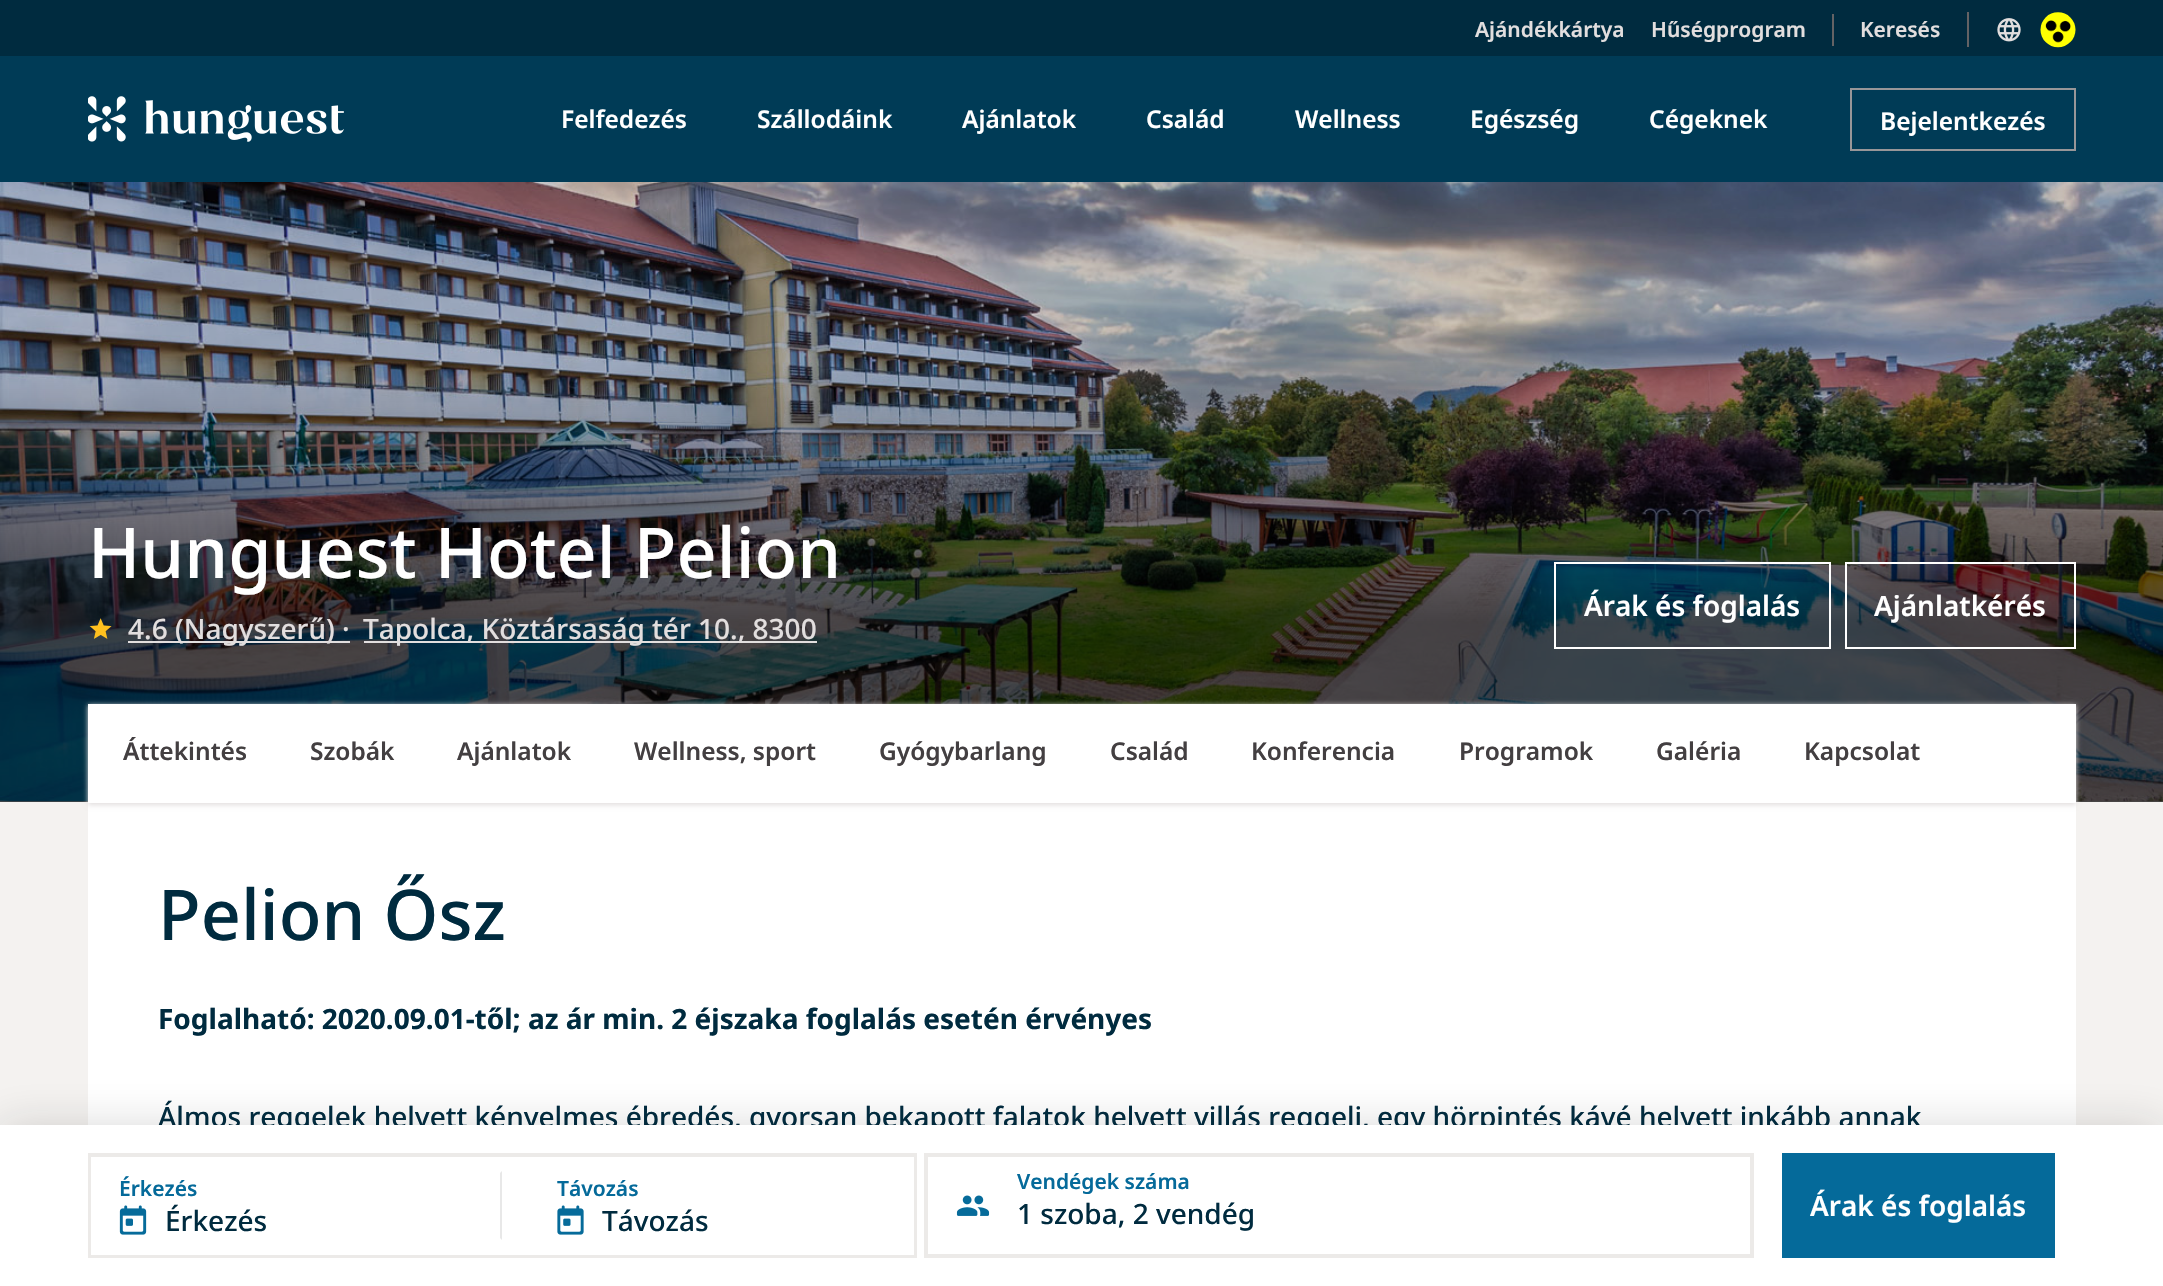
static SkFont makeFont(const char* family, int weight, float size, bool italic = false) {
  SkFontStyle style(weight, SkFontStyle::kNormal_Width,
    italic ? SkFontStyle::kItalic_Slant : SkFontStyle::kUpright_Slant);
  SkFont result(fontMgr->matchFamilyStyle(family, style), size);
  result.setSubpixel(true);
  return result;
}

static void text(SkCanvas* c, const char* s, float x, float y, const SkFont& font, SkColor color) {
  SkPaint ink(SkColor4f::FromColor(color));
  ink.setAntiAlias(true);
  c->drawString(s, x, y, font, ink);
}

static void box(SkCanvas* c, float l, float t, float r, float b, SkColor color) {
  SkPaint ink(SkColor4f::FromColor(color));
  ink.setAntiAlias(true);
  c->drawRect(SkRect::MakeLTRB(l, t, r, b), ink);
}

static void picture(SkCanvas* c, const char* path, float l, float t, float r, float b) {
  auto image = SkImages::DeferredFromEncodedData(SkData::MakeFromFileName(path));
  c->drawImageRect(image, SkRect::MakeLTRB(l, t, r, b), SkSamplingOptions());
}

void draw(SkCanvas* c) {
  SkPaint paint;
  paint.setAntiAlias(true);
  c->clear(0xfff4f2f0);
  box(c, 0, 0, 2163, 56, 0xff002b3f);
  SkFont face1 = makeFont("Noto Sans", 600, 21);
  text(c, "Ajándékkártya", 1475, 37, face1, 0xffe2dede);
  text(c, "Hűségprogram", 1651, 37, face1, 0xffe2dede);
  box(c, 1832, 14, 1834, 46, 0xff646264);
  text(c, "Keresés", 1860, 37, face1, 0xffe2dede);
  box(c, 1967, 12, 1969, 47, 0xff646264);
  picture(c, "img_01.png", 1997, 18, 2021, 42);
  picture(c, "img_02.png", 2040, 12, 2076, 48);
  box(c, 0, 56, 2163, 182, 0xff003b56);
  picture(c, "img_03.png", 88, 96, 344, 142);
  SkFont face2 = makeFont("Noto Sans", 600, 24.5f);
  text(c, "Felfedezés", 561, 128, face2, 0xffffffff);
  text(c, "Szállodáink", 757, 128, face2, 0xffffffff);
  text(c, "Ajánlatok", 962, 128, face2, 0xffffffff);
  text(c, "Család", 1146, 128, face2, 0xffffffff);
  text(c, "Wellness", 1295, 128, face2, 0xffffffff);
  text(c, "Egészség", 1470, 128, face2, 0xffffffff);
  text(c, "Cégeknek", 1649, 128, face2, 0xffffffff);
  paint.setStyle(SkPaint::kStroke_Style);
  paint.setStrokeWidth(2);
  paint.setColor(0xff989698);
  c->drawRect(SkRect::MakeLTRB(1851, 89, 2075, 150), paint);
  text(c, "Bejelentkezés", 1880, 130, face2, 0xffffffff);
  picture(c, "img_04.png", 0, 182, 2163, 802);
  paint.setStyle(SkPaint::kFill_Style);
  {
    const SkColor colors[] = {0xb3000000, 0x33000000};
    const float stops[] = {0.29f, 0.71f};
    const SkPoint ends[] = {{1082, 802}, {1082, 182}};
    paint.setShader(SkGradientShader::MakeLinear(ends, colors, stops, 2, SkTileMode::kClamp));
    paint.setAlpha(255);
  }
  c->drawRect(SkRect::MakeLTRB(0, 182, 2163, 802), paint);
  SkFont face3 = makeFont("Noto Sans", 500, 70);
  text(c, "Hunguest Hotel Pelion", 88, 578, face3, 0xffffffff);
  picture(c, "img_05.png", 89, 618, 112, 639);
  box(c, 128, 641, 350, 643, 0xffe2dede);
  SkFont face4 = makeFont("Noto Sans", 500, 28);
  text(c, "4.6 (Nagyszerű) ·", 128, 639, face4, 0xffe2dede);
  box(c, 364, 641, 817, 643, 0xffe2dede);
  text(c, "Tapolca, Köztársaság tér 10., 8300", 363, 639, face4, 0xffe2dede);
  paint.setStyle(SkPaint::kStroke_Style);
  paint.setShader(nullptr);
  paint.setColor(0xffffffff);
  c->drawRect(SkRect::MakeLTRB(1555, 563, 1830, 648), paint);
  SkFont face5 = makeFont("Noto Sans", 600, 28);
  text(c, "Árak és foglalás", 1584, 616, face5, 0xffffffff);
  c->drawRect(SkRect::MakeLTRB(1846, 563, 2075, 648), paint);
  text(c, "Ajánlatkérés", 1874, 616, face5, 0xffffffff);
  box(c, 88, 803, 2076, 1125, 0xffffffff);
  paint.setStyle(SkPaint::kFill_Style);
  paint.setColor(0xffe2dede);
  paint.setMaskFilter(SkMaskFilter::MakeBlur(kNormal_SkBlurStyle, 2.5f));
  c->drawRect(SkRect::MakeLTRB(88, 705, 2076, 805), paint);
  paint.setMaskFilter(nullptr);
  box(c, 88, 704, 2076, 803, 0xffffffff);
  text(c, "Áttekintés", 123, 760, face2, 0xff433f41);
  text(c, "Szobák", 310, 760, face2, 0xff433f41);
  text(c, "Ajánlatok", 457, 760, face2, 0xff433f41);
  text(c, "Wellness, sport", 634, 760, face2, 0xff433f41);
  text(c, "Gyógybarlang", 879, 760, face2, 0xff433f41);
  text(c, "Család", 1110, 760, face2, 0xff433f41);
  text(c, "Konferencia", 1251, 760, face2, 0xff433f41);
  text(c, "Programok", 1459, 760, face2, 0xff433f41);
  text(c, "Galéria", 1656, 760, face2, 0xff433f41);
  text(c, "Kapcsolat", 1804, 760, face2, 0xff433f41);
  text(c, "Pelion Ősz", 158, 940, face3, 0xff002b3f);
  SkFont face6 = makeFont("Noto Sans", 700, 28);
  text(c, "Foglalható: 2020.09.01-től; az ár min. 2 éjszaka foglalás esetén érvényes", 158, 1029, face6, 0xff002b3f);
  text(c, "Álmos reggelek helyett kényelmes ébredés, gyorsan bekapott falatok helyett villás reggeli, egy hörpintés kávé helyett inkább annak", 158, 1127, face4, 0xff002b3f);
  paint.setColor(0x29161616);
  paint.setMaskFilter(SkMaskFilter::MakeBlur(kNormal_SkBlurStyle, 21));
  c->drawRect(SkRect::MakeLTRB(0, 1125, 2163, 1286), paint);
  paint.setMaskFilter(nullptr);
  box(c, 0, 1125, 2163, 1286, 0xffffffff);
  paint.setStyle(SkPaint::kStroke_Style);
  paint.setStrokeWidth(4);
  paint.setColor(0xffeceae8);
  c->drawRect(SkRect::MakeLTRB(90, 1155, 915, 1256), paint);
  box(c, 91, 1157, 914, 1255, 0xffffffff);
  paint.setStyle(SkPaint::kFill_Style);
  paint.setColor(0xffe8e8e8);
  c->drawPath(SkPathBuilder().moveTo(502, 1240).lineTo(502, 1171).lineTo(500, 1173).lineTo(500, 1238).close().detach(), paint);
  text(c, "Érkezés", 119, 1196, face1, 0xff056a9a);
  picture(c, "img_06.png", 119, 1205, 147, 1235);
  text(c, "Érkezés", 165, 1231, face4, 0xff002b3f);
  text(c, "Távozás", 557, 1196, face1, 0xff056a9a);
  picture(c, "img_07.png", 557, 1205, 584, 1235);
  text(c, "Távozás", 602, 1231, face4, 0xff002b3f);
  paint.setStyle(SkPaint::kStroke_Style);
  paint.setColor(0xffeceae8);
  c->drawRect(SkRect::MakeLTRB(926, 1155, 1752, 1256), paint);
  picture(c, "img_08.png", 956, 1195, 990, 1216);
  text(c, "Vendégek száma", 1017, 1189, face1, 0xff056a9a);
  text(c, "1 szoba, 2 vendég", 1017, 1224, face4, 0xff002b3f);
  box(c, 1782, 1153, 2055, 1258, 0xff056a9a);
  text(c, "Árak és foglalás", 1810, 1216, face5, 0xffffffff);
}
